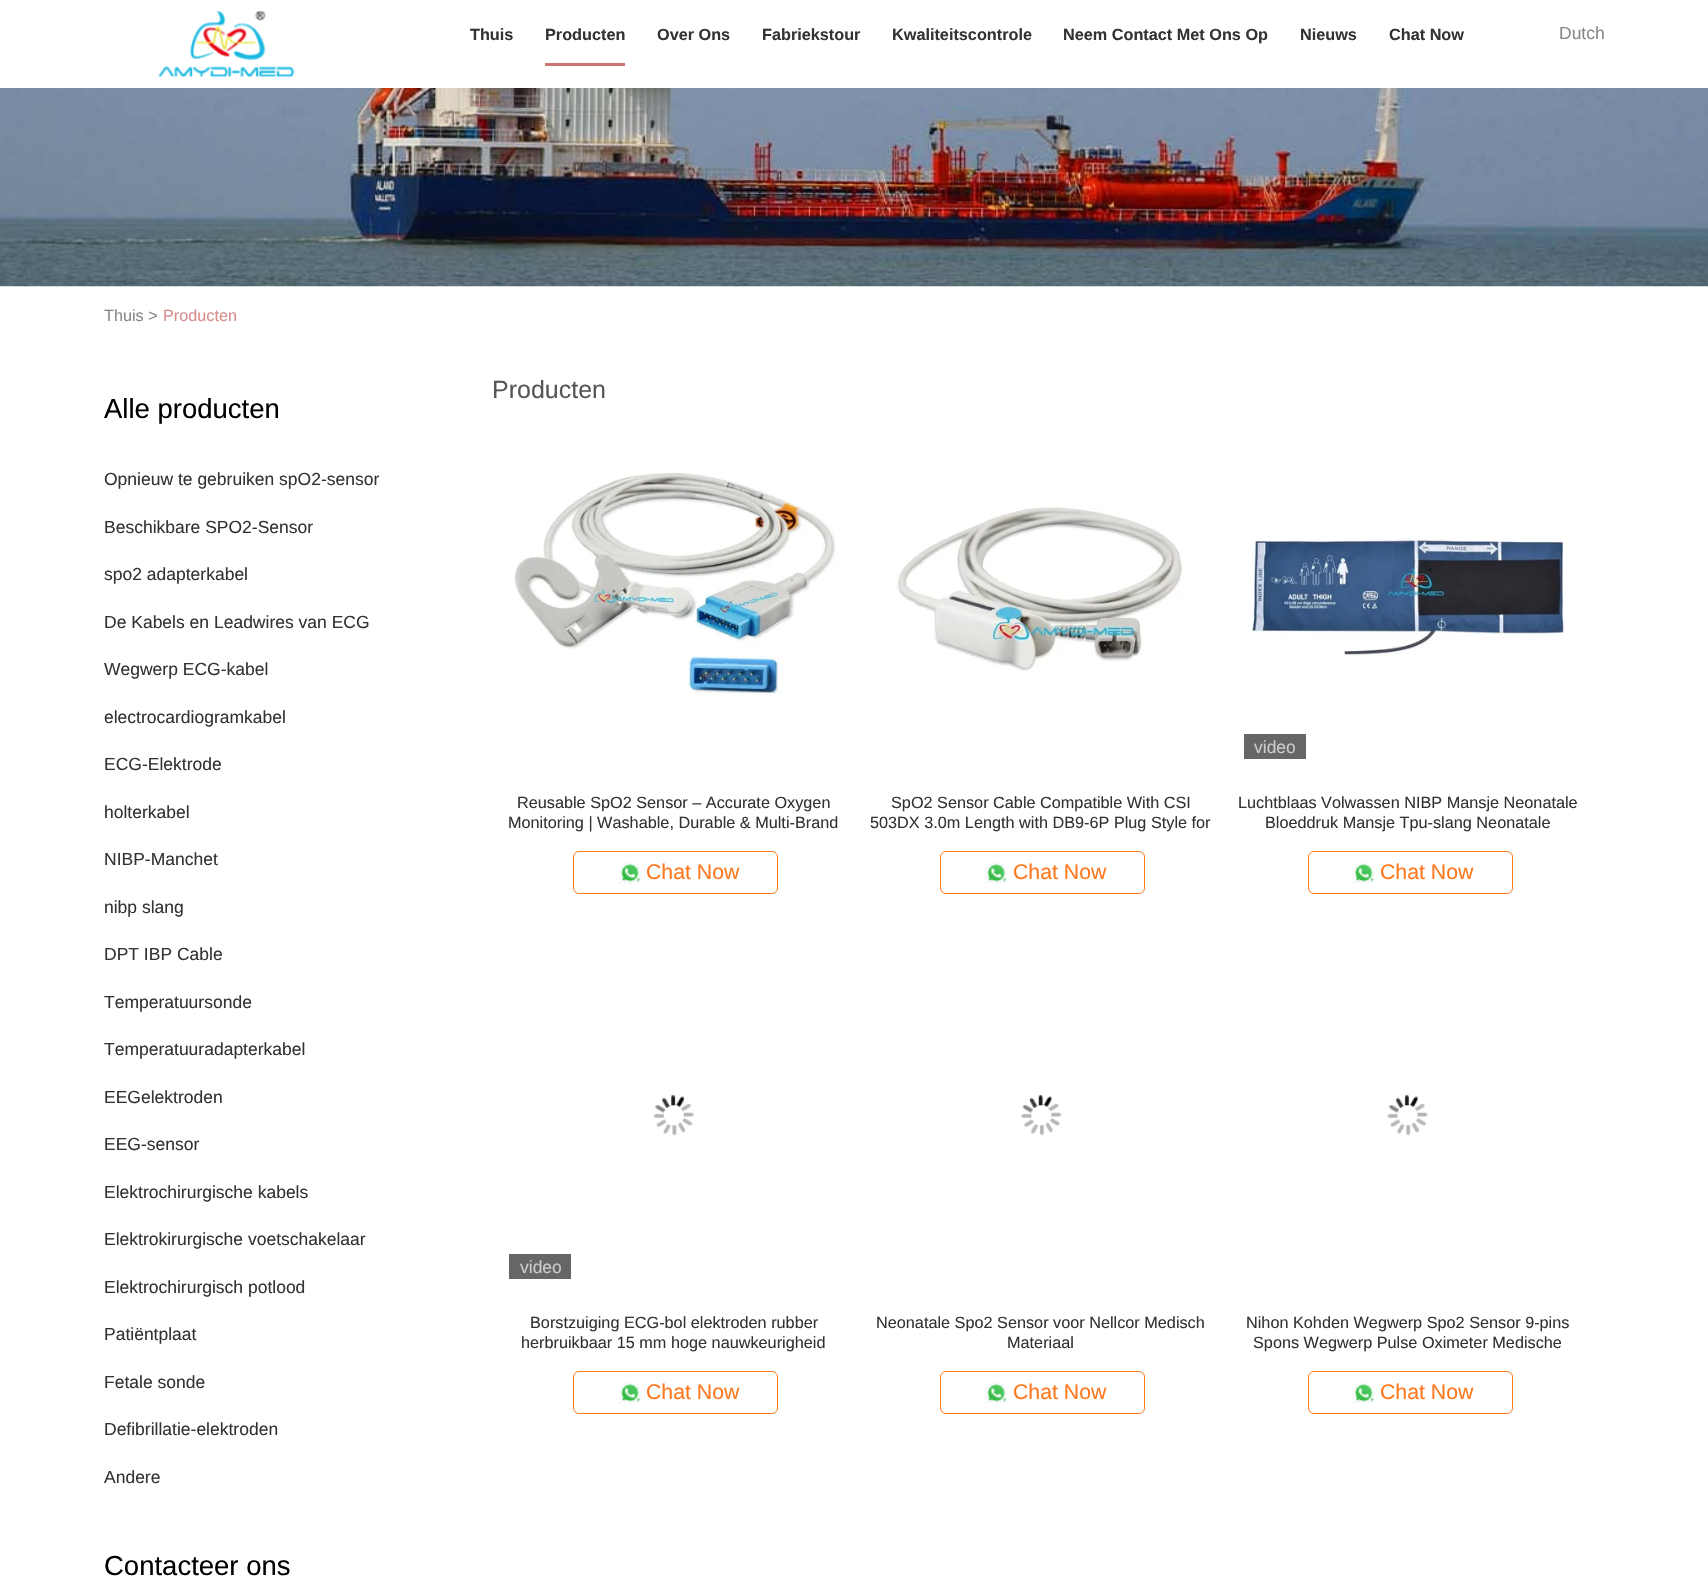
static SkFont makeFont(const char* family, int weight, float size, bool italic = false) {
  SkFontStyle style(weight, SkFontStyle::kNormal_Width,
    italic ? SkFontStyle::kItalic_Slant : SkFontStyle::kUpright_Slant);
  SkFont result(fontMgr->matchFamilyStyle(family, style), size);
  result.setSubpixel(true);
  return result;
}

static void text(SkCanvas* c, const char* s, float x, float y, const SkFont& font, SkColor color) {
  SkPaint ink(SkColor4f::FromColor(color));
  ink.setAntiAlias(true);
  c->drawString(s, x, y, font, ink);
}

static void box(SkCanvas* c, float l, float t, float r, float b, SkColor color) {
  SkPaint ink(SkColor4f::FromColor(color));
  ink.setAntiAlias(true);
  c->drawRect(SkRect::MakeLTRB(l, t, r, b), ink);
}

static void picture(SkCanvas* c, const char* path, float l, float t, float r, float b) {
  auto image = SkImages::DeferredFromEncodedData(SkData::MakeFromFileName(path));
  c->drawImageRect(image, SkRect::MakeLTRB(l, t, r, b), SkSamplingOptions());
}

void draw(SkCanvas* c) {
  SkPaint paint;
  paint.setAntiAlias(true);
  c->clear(0xffffffff);
  picture(c, "img_01.png", 158, 11, 295, 78);
  SkFont face1 = makeFont("Liberation Sans", 700, 16.25f);
  text(c, "Thuis", 470, 40, face1, 0xff333333);
  box(c, 545, 63, 625, 66, 0xffd17474);
  text(c, "Producten", 545, 40, face1, 0xff333333);
  text(c, "Over Ons", 657, 40, face1, 0xff333333);
  text(c, "Fabriekstour", 762, 40, face1, 0xff333333);
  text(c, "Kwaliteitscontrole", 892, 40, face1, 0xff333333);
  text(c, "Neem Contact Met Ons Op", 1063, 40, face1, 0xff333333);
  text(c, "Nieuws", 1300, 40, face1, 0xff333333);
  text(c, "Chat Now", 1389, 40, face1, 0xff333333);
  SkFont face2 = makeFont("Liberation Sans", 400, 17.5f);
  text(c, "Dutch", 1559, 39, face2, 0xff888888);
  picture(c, "img_02.png", 0, 88, 1708, 287);
  SkFont face3 = makeFont("Liberation Sans", 400, 16.25f);
  text(c, "Thuis >", 104, 321, face3, 0xff888888);
  text(c, "Producten", 163, 321, face3, 0xffd88d8d);
  SkFont face4 = makeFont("Liberation Sans", 400, 27.5f);
  text(c, "Alle producten", 104, 418, face4, 0xff000000);
  text(c, "Opnieuw te gebruiken spO2-sensor", 104, 485, face2, 0xff333333);
  text(c, "Beschikbare SPO2-Sensor", 104, 533, face2, 0xff333333);
  text(c, "spo2 adapterkabel", 104, 580, face2, 0xff333333);
  text(c, "De Kabels en Leadwires van ECG", 104, 628, face2, 0xff333333);
  text(c, "Wegwerp ECG-kabel", 104, 675, face2, 0xff333333);
  text(c, "electrocardiogramkabel", 104, 723, face2, 0xff333333);
  text(c, "ECG-Elektrode", 104, 770, face2, 0xff333333);
  text(c, "holterkabel", 104, 818, face2, 0xff333333);
  text(c, "NIBP-Manchet", 104, 865, face2, 0xff333333);
  text(c, "nibp slang", 104, 913, face2, 0xff333333);
  text(c, "DPT IBP Cable", 104, 960, face2, 0xff333333);
  text(c, "Temperatuursonde", 104, 1008, face2, 0xff333333);
  text(c, "Temperatuuradapterkabel", 104, 1055, face2, 0xff333333);
  text(c, "EEGelektroden", 104, 1103, face2, 0xff333333);
  text(c, "EEG-sensor", 104, 1150, face2, 0xff333333);
  text(c, "Elektrochirurgische kabels", 104, 1198, face2, 0xff333333);
  text(c, "Elektrokirurgische voetschakelaar", 104, 1245, face2, 0xff333333);
  text(c, "Elektrochirurgisch potlood", 104, 1293, face2, 0xff333333);
  text(c, "Patiëntplaat", 104, 1340, face2, 0xff333333);
  text(c, "Fetale sonde", 104, 1388, face2, 0xff333333);
  text(c, "Defibrillatie-elektroden", 104, 1435, face2, 0xff333333);
  text(c, "Andere", 104, 1483, face2, 0xff333333);
  text(c, "Contacteer ons", 104, 1575, face4, 0xff000000);
  SkFont face5 = makeFont("Liberation Sans", 400, 25);
  text(c, "Producten", 492, 398, face5, 0xff555555);
  picture(c, "img_03.png", 514, 472, 836, 696);
  text(c, "Reusable SpO2 Sensor – Accurate Oxygen", 517, 808, face3, 0xff333333);
  text(c, "Monitoring | Washable, Durable & Multi-Brand", 508, 828, face3, 0xff333333);
  paint.setStyle(SkPaint::kStroke_Style);
  paint.setStrokeWidth(1);
  paint.setColor(0xffff771c);
  c->drawRoundRect(SkRect::MakeLTRB(573.5f, 851.5f, 777.5f, 893.5f), 5.5f, 5.5f, paint);
  picture(c, "img_04.png", 619, 861, 641, 884);
  SkFont face6 = makeFont("Liberation Sans", 400, 21.25f);
  text(c, "Chat Now", 646, 879, face6, 0xffff771c);
  picture(c, "img_05.png", 896, 507, 1183, 671);
  text(c, "SpO2 Sensor Cable Compatible With CSI", 891, 808, face3, 0xff333333);
  text(c, "503DX 3.0m Length with DB9-6P Plug Style for", 870, 828, face3, 0xff333333);
  c->drawRoundRect(SkRect::MakeLTRB(940.5f, 851.5f, 1144.5f, 893.5f), 5.5f, 5.5f, paint);
  picture(c, "img_06.png", 985, 861, 1008, 884);
  text(c, "Chat Now", 1013, 879, face6, 0xffff771c);
  picture(c, "img_07.png", 1251, 538, 1564, 656);
  box(c, 1244, 734, 1306, 759, 0xff666666);
  text(c, "video", 1254, 753, face2, 0xffcbcbcb);
  text(c, "Luchtblaas Volwassen NIBP Mansje Neonatale", 1238, 808, face3, 0xff333333);
  text(c, "Bloeddruk Mansje Tpu-slang Neonatale", 1265, 828, face3, 0xff333333);
  c->drawRoundRect(SkRect::MakeLTRB(1308.5f, 851.5f, 1512.5f, 893.5f), 5.5f, 5.5f, paint);
  picture(c, "img_08.png", 1352, 861, 1375, 884);
  text(c, "Chat Now", 1380, 879, face6, 0xffff771c);
  picture(c, "img_09.png", 653, 1095, 694, 1136);
  box(c, 509, 1254, 571, 1279, 0xff666666);
  text(c, "video", 520, 1273, face2, 0xffcbcbcb);
  text(c, "Borstzuiging ECG-bol elektroden rubber", 530, 1328, face3, 0xff333333);
  text(c, "herbruikbaar 15 mm hoge nauwkeurigheid", 521, 1348, face3, 0xff333333);
  c->drawRoundRect(SkRect::MakeLTRB(573.5f, 1371.5f, 777.5f, 1413.5f), 5.5f, 5.5f, paint);
  picture(c, "img_10.png", 619, 1381, 641, 1404);
  text(c, "Chat Now", 646, 1399, face6, 0xffff771c);
  picture(c, "img_11.png", 1021, 1095, 1062, 1136);
  text(c, "Neonatale Spo2 Sensor voor Nellcor Medisch", 876, 1328, face3, 0xff333333);
  text(c, "Materiaal", 1007, 1348, face3, 0xff333333);
  c->drawRoundRect(SkRect::MakeLTRB(940.5f, 1371.5f, 1144.5f, 1413.5f), 5.5f, 5.5f, paint);
  picture(c, "img_12.png", 985, 1381, 1008, 1404);
  text(c, "Chat Now", 1013, 1399, face6, 0xffff771c);
  picture(c, "img_13.png", 1387, 1095, 1428, 1136);
  text(c, "Nihon Kohden Wegwerp Spo2 Sensor 9-pins", 1246, 1328, face3, 0xff333333);
  text(c, "Spons Wegwerp Pulse Oximeter Medische", 1253, 1348, face3, 0xff333333);
  c->drawRoundRect(SkRect::MakeLTRB(1308.5f, 1371.5f, 1512.5f, 1413.5f), 5.5f, 5.5f, paint);
  picture(c, "img_14.png", 1352, 1381, 1375, 1404);
  text(c, "Chat Now", 1380, 1399, face6, 0xffff771c);
}
